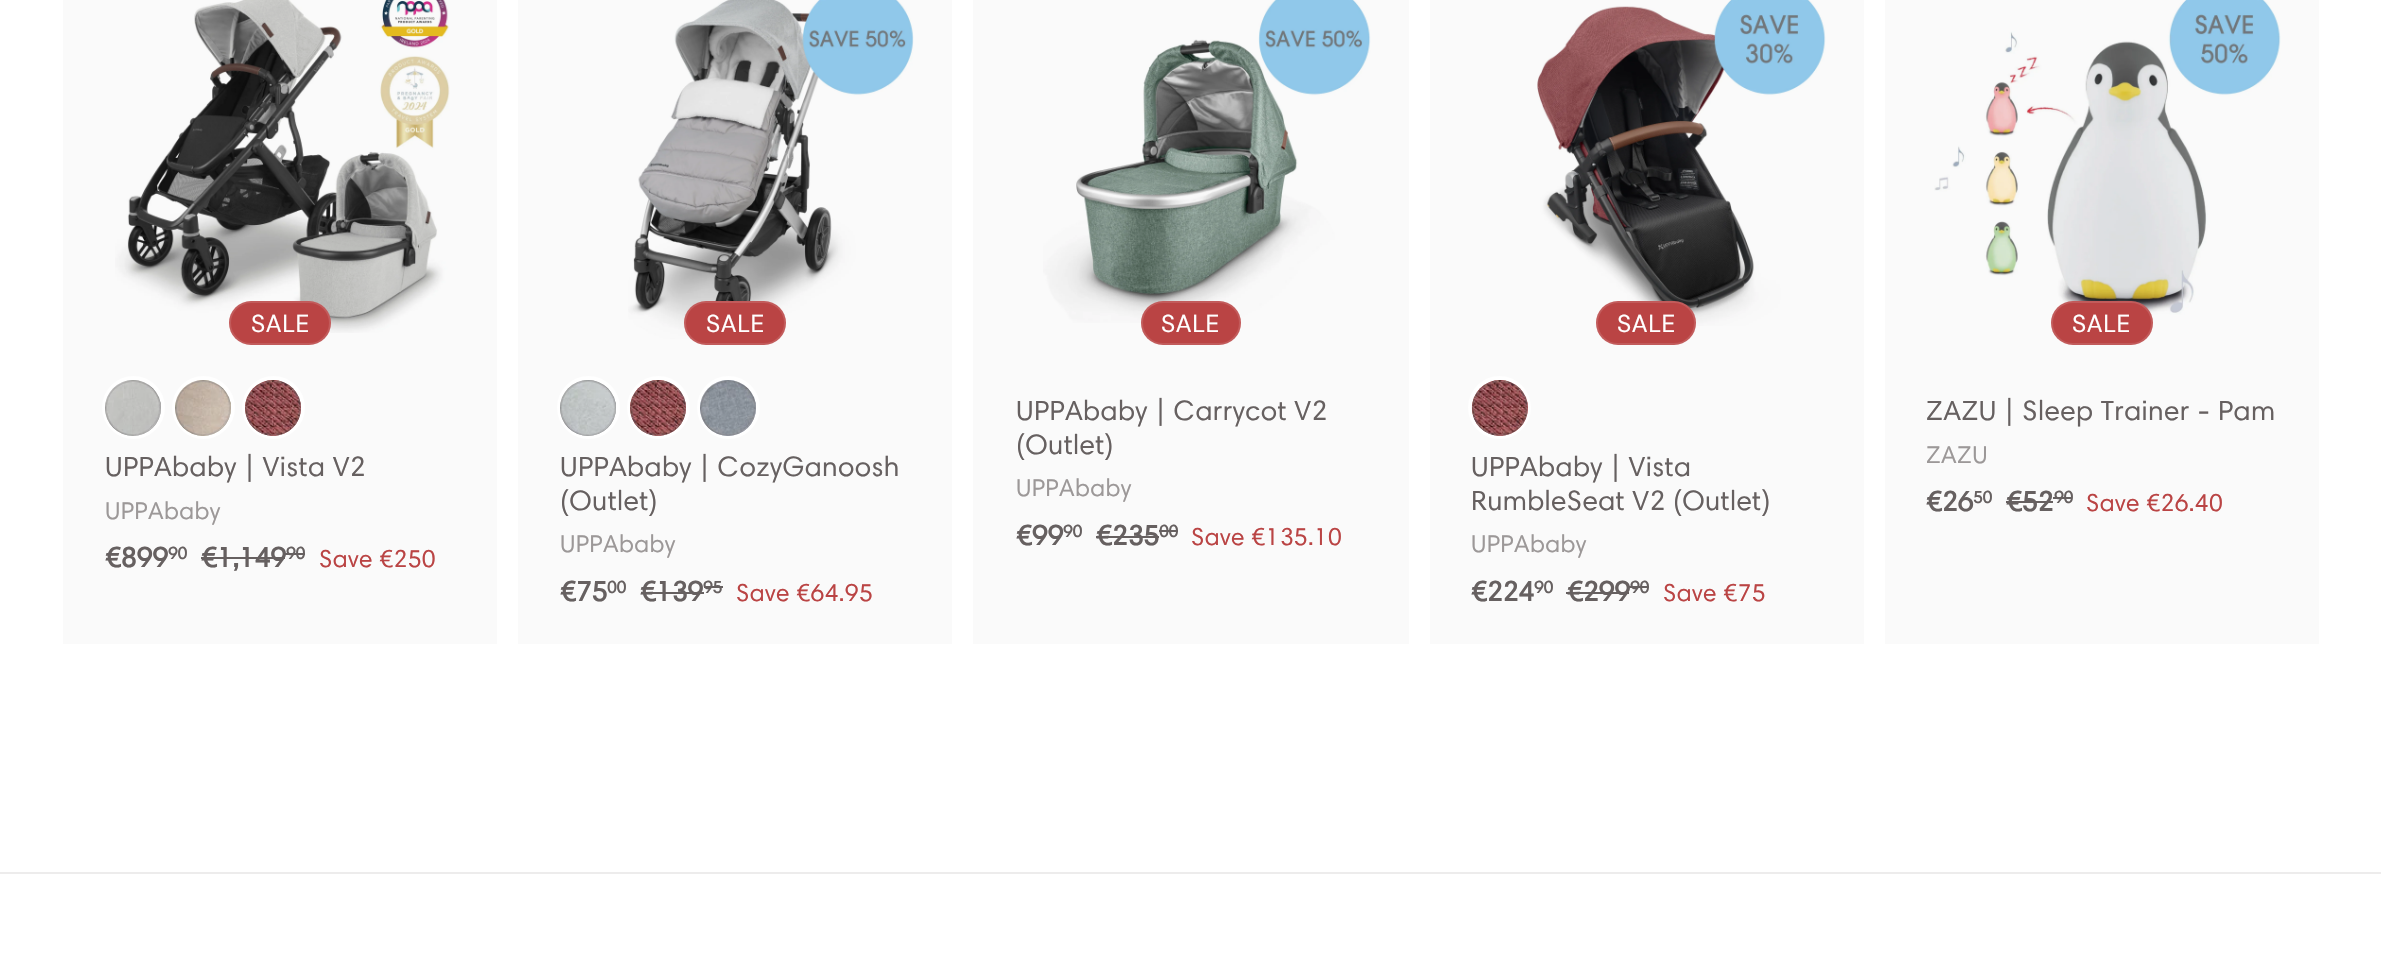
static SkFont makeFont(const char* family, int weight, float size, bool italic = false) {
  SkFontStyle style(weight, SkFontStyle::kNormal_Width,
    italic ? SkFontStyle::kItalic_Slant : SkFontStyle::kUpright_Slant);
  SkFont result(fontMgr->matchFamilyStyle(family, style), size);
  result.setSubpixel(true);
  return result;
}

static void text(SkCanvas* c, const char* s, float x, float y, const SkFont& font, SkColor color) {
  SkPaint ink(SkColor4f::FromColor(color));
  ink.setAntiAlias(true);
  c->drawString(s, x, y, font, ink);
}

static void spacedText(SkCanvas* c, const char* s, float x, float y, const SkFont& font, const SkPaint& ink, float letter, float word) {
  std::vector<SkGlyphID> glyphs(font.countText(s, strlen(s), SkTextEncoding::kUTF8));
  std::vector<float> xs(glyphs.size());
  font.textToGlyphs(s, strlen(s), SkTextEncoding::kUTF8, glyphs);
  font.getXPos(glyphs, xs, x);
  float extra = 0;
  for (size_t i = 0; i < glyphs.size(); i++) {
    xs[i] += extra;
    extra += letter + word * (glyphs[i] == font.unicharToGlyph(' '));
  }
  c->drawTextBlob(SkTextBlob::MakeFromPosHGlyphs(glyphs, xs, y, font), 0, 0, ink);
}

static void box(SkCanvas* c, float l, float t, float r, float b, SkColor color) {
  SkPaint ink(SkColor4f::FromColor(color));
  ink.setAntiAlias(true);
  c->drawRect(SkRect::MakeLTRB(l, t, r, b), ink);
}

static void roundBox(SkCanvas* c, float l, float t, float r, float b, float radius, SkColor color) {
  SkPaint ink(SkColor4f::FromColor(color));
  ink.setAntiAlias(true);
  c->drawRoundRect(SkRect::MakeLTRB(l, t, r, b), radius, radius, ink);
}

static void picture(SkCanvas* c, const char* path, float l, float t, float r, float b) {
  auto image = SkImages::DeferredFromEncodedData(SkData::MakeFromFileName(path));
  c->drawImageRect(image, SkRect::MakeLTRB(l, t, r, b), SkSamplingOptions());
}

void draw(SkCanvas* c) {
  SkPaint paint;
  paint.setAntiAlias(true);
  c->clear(0xffffffff);
  picture(c, "img_01.png", 115, 0, 450, 333);
  box(c, 201, 557, 285, 559, 0xff666060);
  box(c, 285, 553, 305, 555, 0xff666060);
  box(c, 63, 0, 497, 644, 0x08666060);
  roundBox(c, 229, 301, 331, 345, 22, 0xffba4444);
  paint.setStyle(SkPaint::kStroke_Style);
  paint.setStrokeWidth(2);
  paint.setColor(0x1fffffff);
  c->drawRoundRect(SkRect::MakeLTRB(230, 302, 330, 344), 21, 21, paint);
  SkFont face1 = makeFont("DM Sans", 400, 24.5f);
  paint.setStyle(SkPaint::kFill_Style);
  paint.setColor(0xffffffff);
  spacedText(c, "SALE", 251, 332, face1, paint, 0.4f, 0);
  paint.setStyle(SkPaint::kStroke_Style);
  paint.setStrokeWidth(4);
  c->drawCircle(133.5f, 407.5f, 29.5f, paint);
  paint.setStyle(SkPaint::kFill_Style);
  paint.setColor(0xffdcdcdc);
  c->drawCircle(133, 408, 28, paint);
  picture(c, "img_02.png", 105, 380, 161, 436);
  paint.setStyle(SkPaint::kStroke_Style);
  paint.setStrokeWidth(2);
  paint.setColor(0x29666060);
  c->drawCircle(133, 408, 27, paint);
  paint.setStrokeWidth(4);
  paint.setColor(0xffffffff);
  c->drawCircle(203.5f, 407.5f, 29.5f, paint);
  paint.setStyle(SkPaint::kFill_Style);
  paint.setColor(0xfff4e9c6);
  c->drawCircle(203, 408, 28, paint);
  picture(c, "img_03.png", 175, 380, 231, 436);
  paint.setStyle(SkPaint::kStroke_Style);
  paint.setStrokeWidth(2);
  paint.setColor(0x29666060);
  c->drawCircle(203, 408, 27, paint);
  paint.setStrokeWidth(4);
  paint.setColor(0xffffffff);
  c->drawCircle(273.5f, 407.5f, 29.5f, paint);
  paint.setStyle(SkPaint::kFill_Style);
  paint.setColor(0xffb94c4c);
  c->drawCircle(273, 408, 28, paint);
  picture(c, "img_04.png", 245, 380, 301, 436);
  paint.setStyle(SkPaint::kStroke_Style);
  paint.setStrokeWidth(2);
  paint.setColor(0x29666060);
  c->drawCircle(273, 408, 27, paint);
  SkFont face2 = makeFont("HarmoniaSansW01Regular", 400, 28);
  paint.setStyle(SkPaint::kFill_Style);
  paint.setColor(0xff666060);
  spacedText(c, "UPPAbaby | Vista V2", 105, 476, face2, paint, 0.4f, 0);
  SkFont face3 = makeFont("HarmoniaSansW01Regular", 400, 24.5f);
  paint.setColor(0xff9c9898);
  spacedText(c, "UPPAbaby", 105, 519, face3, paint, 0.4f, 0);
  SkFont face4 = makeFont("HarmoniaSansW01Regular", 700, 28);
  text(c, "€899", 105, 567, face4, 0xff666060);
  SkFont face5 = makeFont("HarmoniaSansW01Regular", 700, 17);
  text(c, "90", 168, 559, face5, 0xff666060);
  text(c, "€1,149", 201, 567, face4, 0xff666060);
  text(c, "90", 286, 559, face5, 0xff666060);
  paint.setColor(0xffba4444);
  spacedText(c, "Save €250", 319, 567, face3, paint, 0.4f, 0);
  picture(c, "img_05.png", 628, 0, 914, 339);
  box(c, 641, 592, 704, 594, 0xff666060);
  box(c, 704, 586, 723, 588, 0xff666060);
  box(c, 518, 0, 952, 644, 0x08666060);
  roundBox(c, 684, 301, 786, 345, 22, 0xffba4444);
  paint.setStyle(SkPaint::kStroke_Style);
  paint.setColor(0x1fffffff);
  c->drawRoundRect(SkRect::MakeLTRB(685, 302, 785, 344), 21, 21, paint);
  paint.setStyle(SkPaint::kFill_Style);
  paint.setColor(0xffffffff);
  spacedText(c, "SALE", 706, 332, face1, paint, 0.4f, 0);
  paint.setStyle(SkPaint::kStroke_Style);
  paint.setStrokeWidth(4);
  c->drawCircle(588.5f, 407.5f, 29.5f, paint);
  paint.setStyle(SkPaint::kFill_Style);
  paint.setColor(0xffc4c4c4);
  c->drawCircle(588, 408, 28, paint);
  picture(c, "img_06.png", 560, 380, 616, 436);
  paint.setStyle(SkPaint::kStroke_Style);
  paint.setStrokeWidth(2);
  paint.setColor(0x29666060);
  c->drawCircle(588, 408, 27, paint);
  paint.setStrokeWidth(4);
  paint.setColor(0xffffffff);
  c->drawCircle(658.5f, 407.5f, 29.5f, paint);
  paint.setStyle(SkPaint::kFill_Style);
  paint.setColor(0xffb94c4c);
  c->drawCircle(658, 408, 28, paint);
  picture(c, "img_07.png", 630, 380, 686, 436);
  paint.setStyle(SkPaint::kStroke_Style);
  paint.setStrokeWidth(2);
  paint.setColor(0x29666060);
  c->drawCircle(658, 408, 27, paint);
  paint.setStrokeWidth(4);
  paint.setColor(0xffffffff);
  c->drawCircle(728.5f, 407.5f, 29.5f, paint);
  paint.setStyle(SkPaint::kFill_Style);
  paint.setColor(0xffbbc2d6);
  c->drawCircle(728, 408, 28, paint);
  picture(c, "img_08.png", 700, 380, 756, 436);
  paint.setStyle(SkPaint::kStroke_Style);
  paint.setStrokeWidth(2);
  paint.setColor(0x29666060);
  c->drawCircle(728, 408, 27, paint);
  paint.setStyle(SkPaint::kFill_Style);
  paint.setColor(0xff666060);
  spacedText(c, "UPPAbaby | CozyGanoosh", 560, 476, face2, paint, 0.4f, 0);
  spacedText(c, "(Outlet)", 560, 510, face2, paint, 0.4f, 0);
  paint.setColor(0xff9c9898);
  spacedText(c, "UPPAbaby", 560, 552, face3, paint, 0.4f, 0);
  text(c, "€75", 560, 601, face4, 0xff666060);
  text(c, "00", 607, 593, face5, 0xff666060);
  text(c, "€139", 640, 601, face4, 0xff666060);
  text(c, "95", 703, 593, face5, 0xff666060);
  paint.setColor(0xffba4444);
  spacedText(c, "Save €64.95", 736, 601, face3, paint, 0.4f, 0);
  picture(c, "img_09.png", 1043, 0, 1371, 323);
  box(c, 1096, 536, 1159, 538, 0xff666060);
  box(c, 1159, 530, 1178, 532, 0xff666060);
  box(c, 973, 0, 1409, 644, 0x08666060);
  roundBox(c, 1141, 301, 1241, 345, 22, 0xffba4444);
  paint.setStyle(SkPaint::kStroke_Style);
  paint.setColor(0x1fffffff);
  c->drawRoundRect(SkRect::MakeLTRB(1142, 302, 1240, 344), 21, 21, paint);
  paint.setStyle(SkPaint::kFill_Style);
  paint.setColor(0xffffffff);
  spacedText(c, "SALE", 1161, 332, face1, paint, 0.4f, 0);
  paint.setColor(0xff666060);
  spacedText(c, "UPPAbaby | Carrycot V2", 1016, 420, face2, paint, 0.4f, 0);
  spacedText(c, "(Outlet)", 1016, 454, face2, paint, 0.4f, 0);
  paint.setColor(0xff9c9898);
  spacedText(c, "UPPAbaby", 1016, 496, face3, paint, 0.4f, 0);
  text(c, "€99", 1016, 545, face4, 0xff666060);
  text(c, "90", 1063, 537, face5, 0xff666060);
  text(c, "€235", 1096, 545, face4, 0xff666060);
  text(c, "00", 1159, 537, face5, 0xff666060);
  paint.setColor(0xffba4444);
  spacedText(c, "Save €135.10", 1191, 545, face3, paint, 0.4f, 0);
  picture(c, "img_10.png", 1537, 0, 1826, 326);
  box(c, 1566, 592, 1629, 594, 0xff666060);
  box(c, 1629, 586, 1649, 588, 0xff666060);
  box(c, 1430, 0, 1864, 644, 0x08666060);
  roundBox(c, 1596, 301, 1696, 345, 22, 0xffba4444);
  paint.setStyle(SkPaint::kStroke_Style);
  paint.setColor(0x1fffffff);
  c->drawRoundRect(SkRect::MakeLTRB(1597, 302, 1695, 344), 21, 21, paint);
  paint.setStyle(SkPaint::kFill_Style);
  paint.setColor(0xffffffff);
  spacedText(c, "SALE", 1617, 332, face1, paint, 0.4f, 0);
  paint.setStyle(SkPaint::kStroke_Style);
  paint.setStrokeWidth(4);
  c->drawCircle(1499.5f, 407.5f, 29.5f, paint);
  paint.setStyle(SkPaint::kFill_Style);
  paint.setColor(0xffb94c4c);
  c->drawCircle(1500, 408, 28, paint);
  picture(c, "img_11.png", 1471, 380, 1528, 436);
  paint.setStyle(SkPaint::kStroke_Style);
  paint.setStrokeWidth(2);
  paint.setColor(0x29666060);
  c->drawCircle(1500, 408, 27, paint);
  paint.setStyle(SkPaint::kFill_Style);
  paint.setColor(0xff666060);
  spacedText(c, "UPPAbaby | Vista", 1471, 476, face2, paint, 0.4f, 0);
  spacedText(c, "RumbleSeat V2 (Outlet)", 1471, 510, face2, paint, 0.4f, 0);
  paint.setColor(0xff9c9898);
  spacedText(c, "UPPAbaby", 1471, 552, face3, paint, 0.4f, 0);
  text(c, "€224", 1471, 601, face4, 0xff666060);
  text(c, "90", 1534, 593, face5, 0xff666060);
  text(c, "€299", 1567, 601, face4, 0xff666060);
  text(c, "90", 1630, 593, face5, 0xff666060);
  paint.setColor(0xffba4444);
  spacedText(c, "Save €75", 1663, 601, face3, paint, 0.4f, 0);
  picture(c, "img_12.png", 1934, 0, 2281, 315);
  box(c, 2006, 501, 2053, 503, 0xff666060);
  box(c, 2053, 497, 2072, 499, 0xff666060);
  box(c, 1885, 0, 2319, 644, 0x08666060);
  roundBox(c, 2051, 301, 2153, 345, 22, 0xffba4444);
  paint.setStyle(SkPaint::kStroke_Style);
  paint.setColor(0x1fffffff);
  c->drawRoundRect(SkRect::MakeLTRB(2052, 302, 2152, 344), 21, 21, paint);
  paint.setStyle(SkPaint::kFill_Style);
  paint.setColor(0xffffffff);
  spacedText(c, "SALE", 2072, 332, face1, paint, 0.4f, 0);
  paint.setColor(0xff666060);
  spacedText(c, "ZAZU | Sleep Trainer - Pam", 1926, 420, face2, paint, 0.4f, 0);
  paint.setColor(0xff9c9898);
  spacedText(c, "ZAZU", 1926, 463, face3, paint, 0.4f, 0);
  text(c, "€26", 1926, 511, face4, 0xff666060);
  text(c, "50", 1973, 503, face5, 0xff666060);
  text(c, "€52", 2006, 511, face4, 0xff666060);
  text(c, "90", 2054, 503, face5, 0xff666060);
  paint.setColor(0xffba4444);
  spacedText(c, "Save €26.40", 2086, 511, face3, paint, 0.4f, 0);
  box(c, 0, 872, 2381, 874, 0xffedecec);
}
